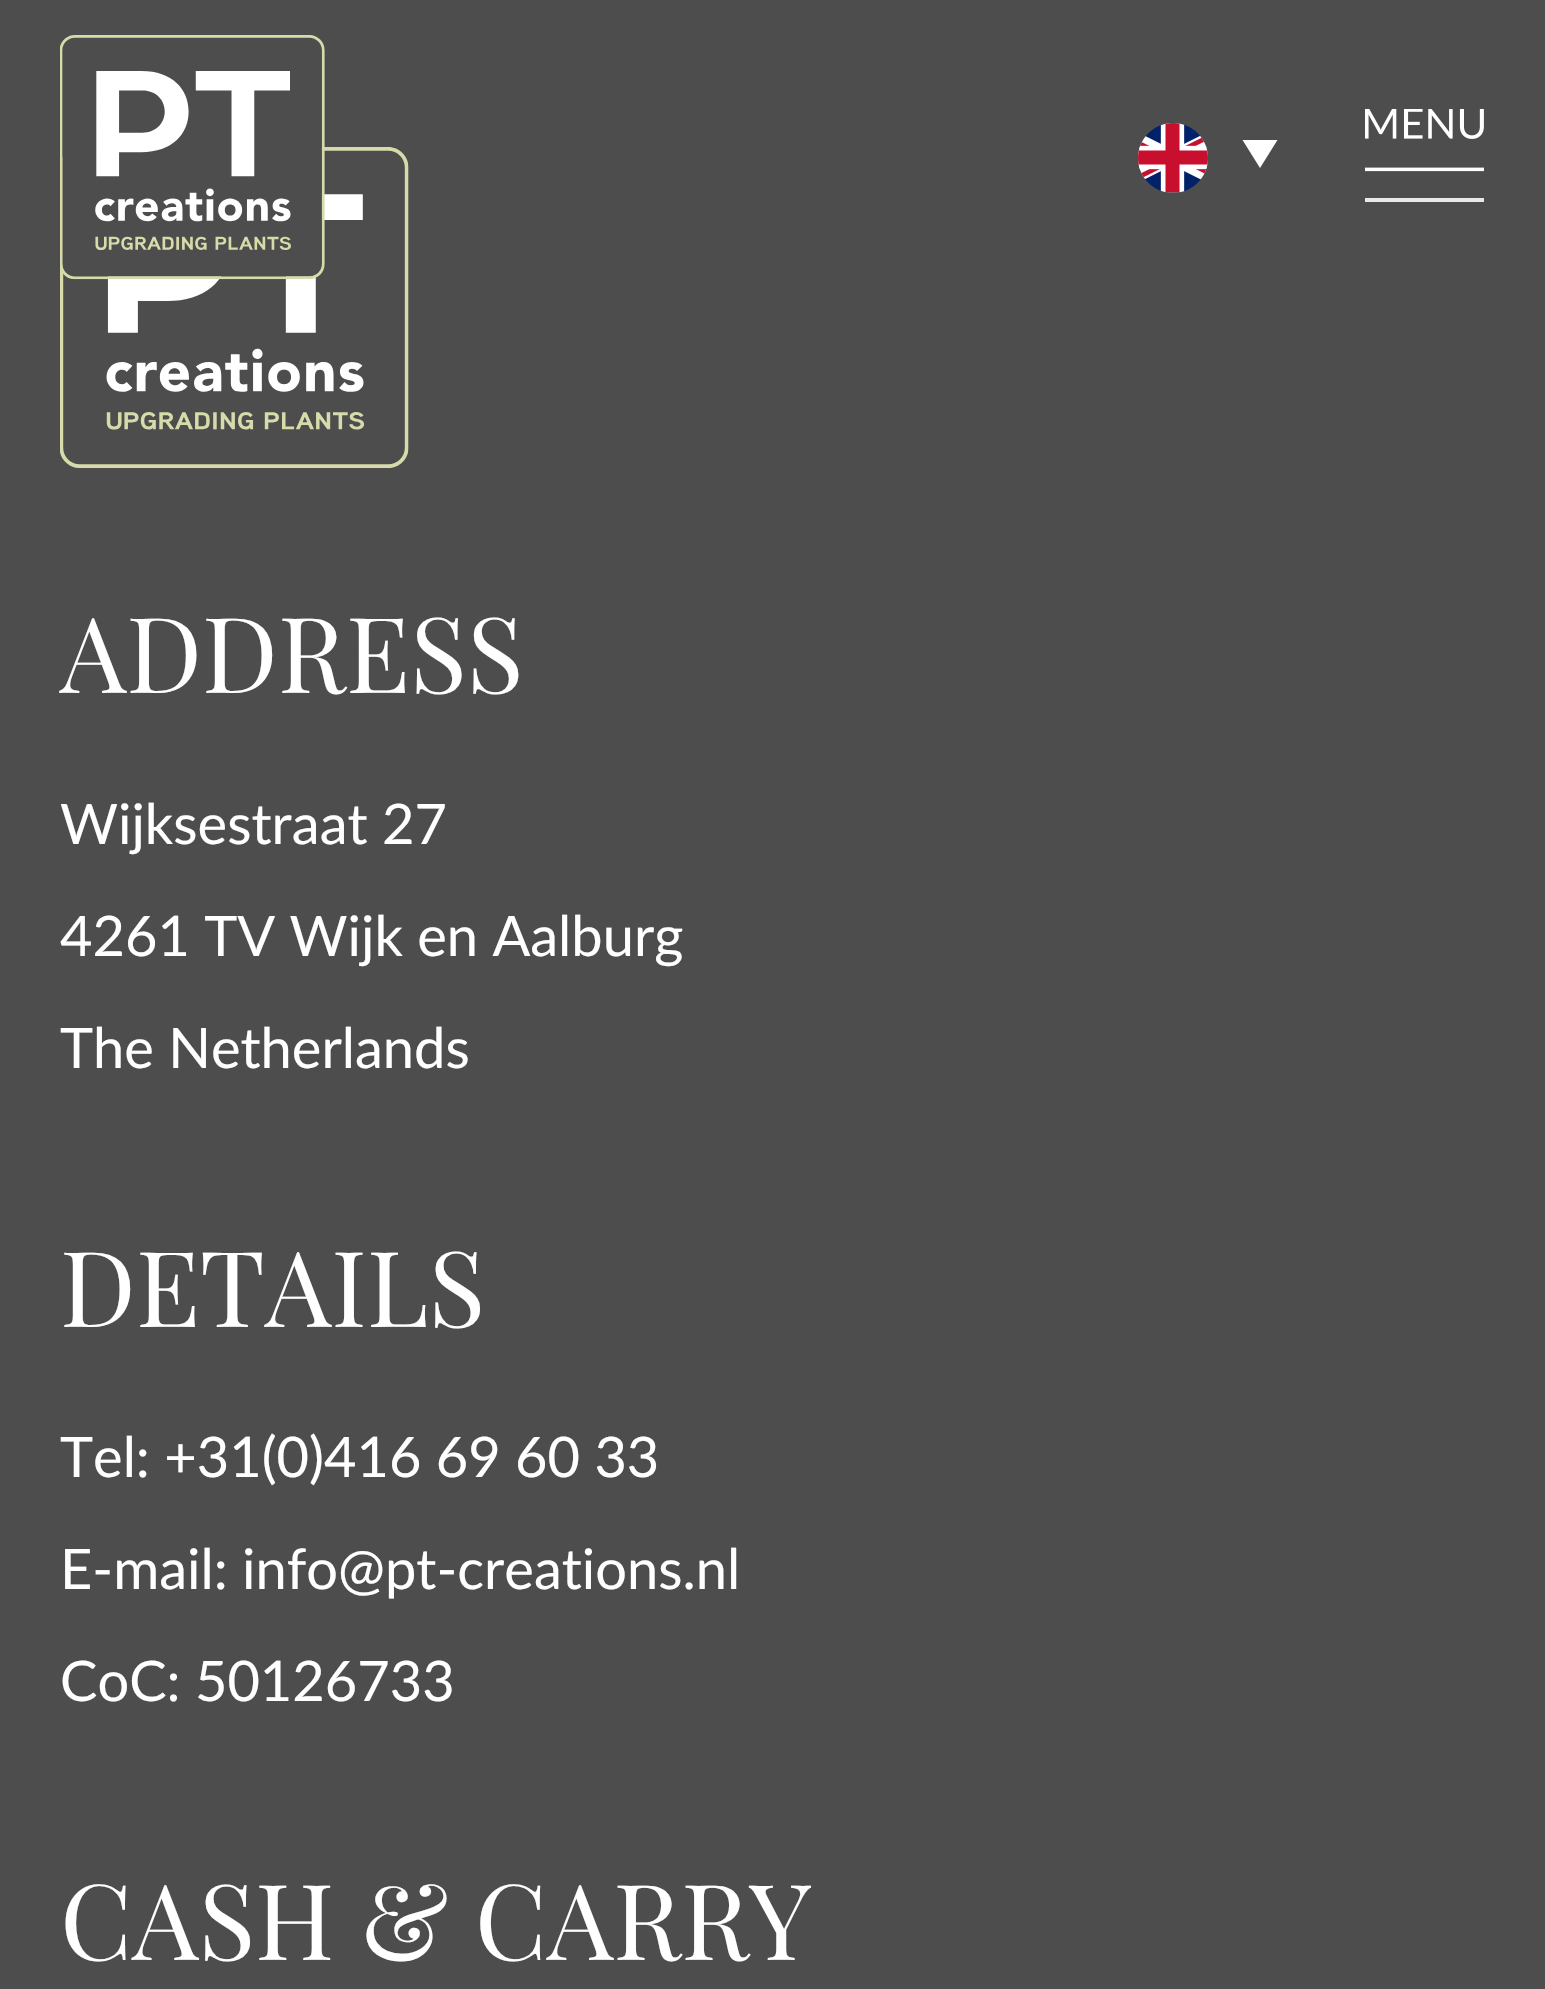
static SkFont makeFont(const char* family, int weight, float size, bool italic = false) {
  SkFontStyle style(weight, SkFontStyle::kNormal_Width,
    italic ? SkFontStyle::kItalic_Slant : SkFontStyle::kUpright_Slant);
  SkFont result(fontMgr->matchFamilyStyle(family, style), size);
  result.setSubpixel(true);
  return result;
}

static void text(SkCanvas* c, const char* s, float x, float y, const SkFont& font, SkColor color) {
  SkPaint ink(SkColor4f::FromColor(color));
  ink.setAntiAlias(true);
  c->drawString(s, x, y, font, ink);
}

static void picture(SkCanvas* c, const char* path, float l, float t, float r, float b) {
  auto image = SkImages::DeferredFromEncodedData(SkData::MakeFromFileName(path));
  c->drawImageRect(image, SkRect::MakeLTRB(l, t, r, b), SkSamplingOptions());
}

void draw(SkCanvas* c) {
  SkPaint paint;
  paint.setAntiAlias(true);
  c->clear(0xff4d4d4d);
  picture(c, "img_04.png", 60, 147, 409, 468);
  picture(c, "img_01.png", 60, 35, 325, 280);
  picture(c, "img_02.png", 1138, 123, 1208, 193);
  paint.setColor(0xffffffff);
  c->drawPath(SkPathBuilder().moveTo(1242.5f, 140).lineTo(1277.5f, 140).lineTo(1260, 168).close().detach(), paint);
  picture(c, "img_03.png", 1365, 109, 1484, 202);
  SkFont face1 = makeFont("Playfair Display", 400, 105);
  text(c, "ADDRESS", 60, 693, face1, 0xffffffff);
  SkFont face2 = makeFont("Lato", 400, 56);
  text(c, "Wijksestraat 27", 60, 844, face2, 0xffffffff);
  text(c, "4261 TV Wijk en Aalburg", 60, 956, face2, 0xffffffff);
  text(c, "The Netherlands", 60, 1068, face2, 0xffffffff);
  text(c, "DETAILS", 60, 1327, face1, 0xffffffff);
  text(c, "Tel: +31(0)416 69 60 33", 60, 1477, face2, 0xffffffff);
  text(c, "E-mail: info@pt-creations.nl", 60, 1589, face2, 0xffffffff);
  text(c, "CoC: 50126733", 60, 1701, face2, 0xffffffff);
  text(c, "CASH & CARRY", 60, 1960, face1, 0xffffffff);
}
